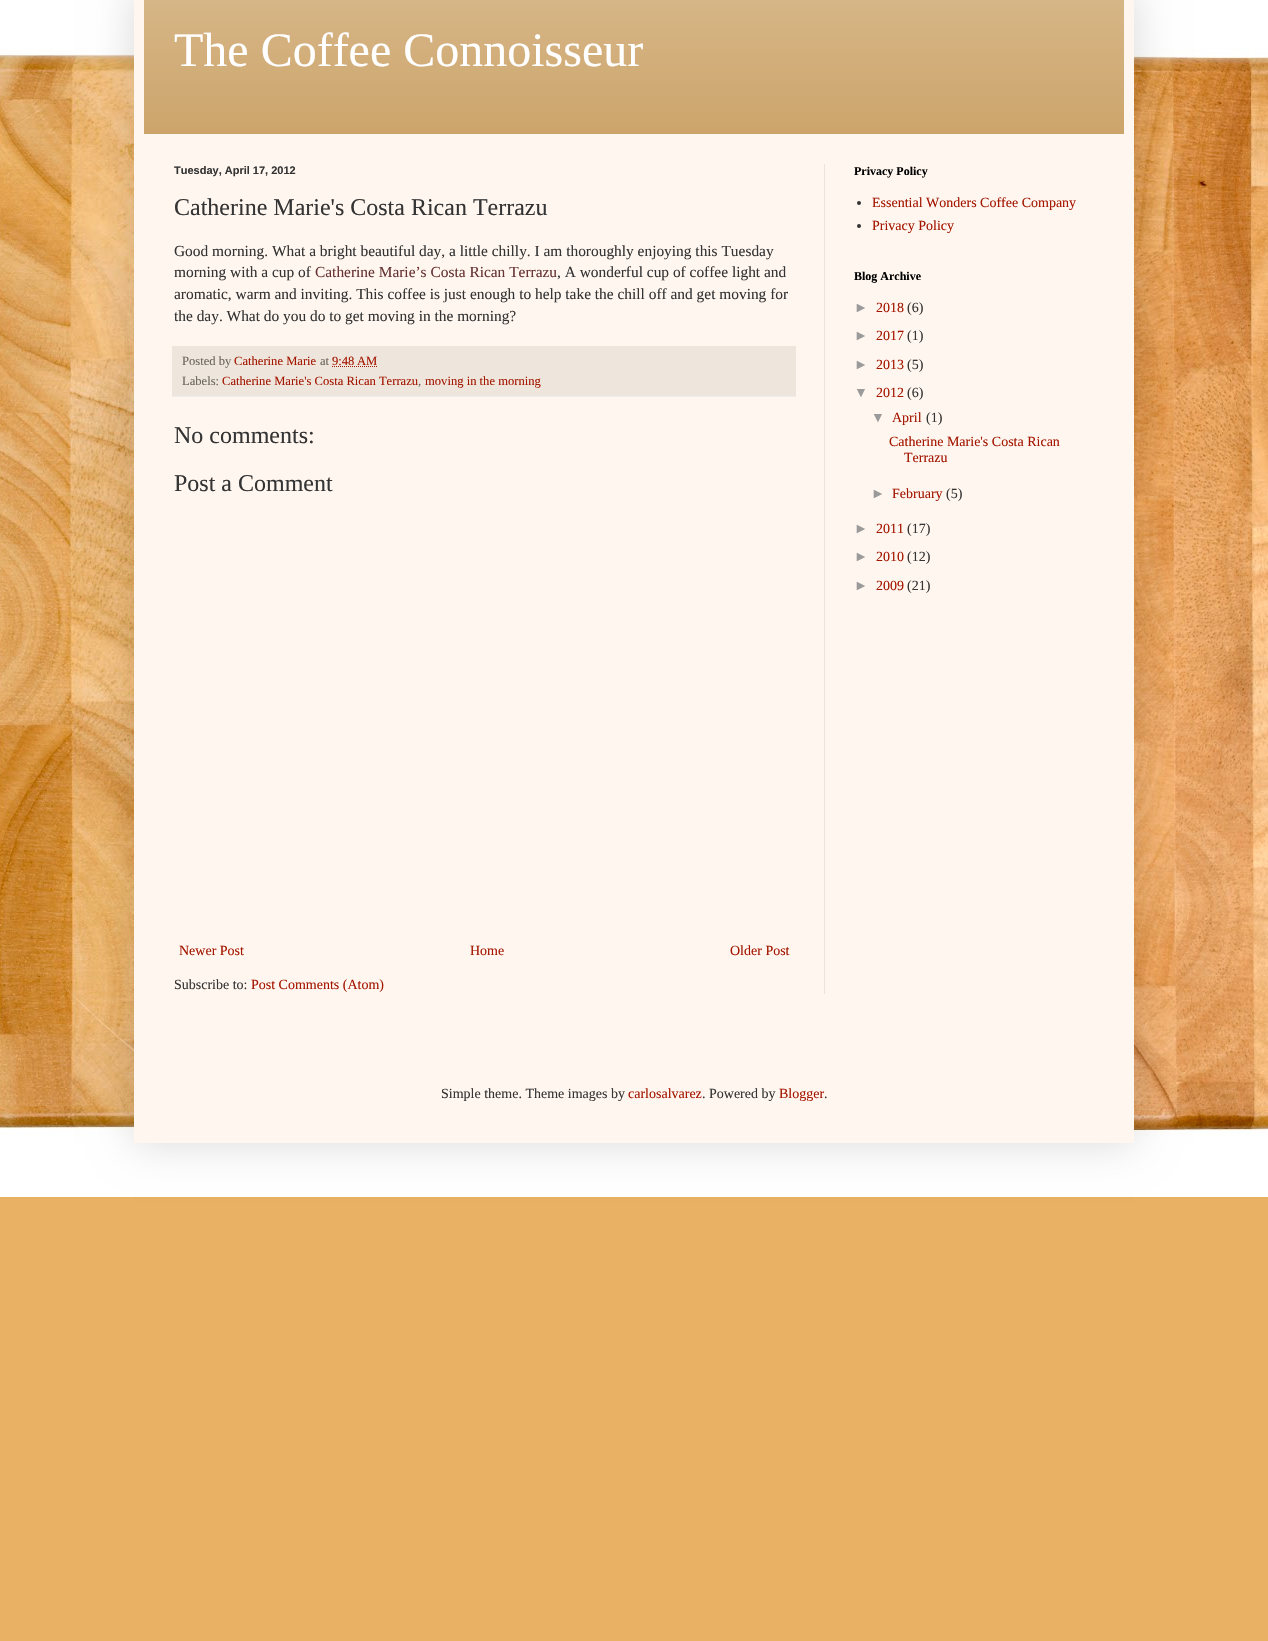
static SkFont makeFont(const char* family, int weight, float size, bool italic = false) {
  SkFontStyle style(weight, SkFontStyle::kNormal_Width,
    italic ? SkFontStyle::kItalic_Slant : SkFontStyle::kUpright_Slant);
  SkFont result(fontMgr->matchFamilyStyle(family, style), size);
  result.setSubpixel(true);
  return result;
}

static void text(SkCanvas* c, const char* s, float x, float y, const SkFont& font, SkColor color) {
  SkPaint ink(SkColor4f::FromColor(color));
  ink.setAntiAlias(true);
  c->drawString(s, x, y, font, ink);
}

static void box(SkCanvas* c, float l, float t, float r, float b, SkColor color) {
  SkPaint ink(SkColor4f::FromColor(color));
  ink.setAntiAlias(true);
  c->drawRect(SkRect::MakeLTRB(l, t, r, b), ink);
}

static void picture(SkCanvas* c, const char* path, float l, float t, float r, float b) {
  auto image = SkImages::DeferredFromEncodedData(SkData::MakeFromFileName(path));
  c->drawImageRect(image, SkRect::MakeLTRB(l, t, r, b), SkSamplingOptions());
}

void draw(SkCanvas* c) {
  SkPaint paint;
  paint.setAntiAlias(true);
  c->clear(0xffe8b163);
  picture(c, "img_01.png", 0, 0, 1268, 1197);
  paint.setColor(0x26000000);
  paint.setMaskFilter(SkMaskFilter::MakeBlur(kNormal_SkBlurStyle, 20));
  c->drawRect(SkRect::MakeLTRB(134, -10, 1134, 1143), paint);
  paint.setMaskFilter(nullptr);
  box(c, 134, 0, 1134, 1143, 0xfffff6ef);
  box(c, 144, 0, 1124, 134, 0xffcca368);
  picture(c, "img_02.png", 144, 0, 1124, 130);
  SkFont face1 = makeFont("Liberation Serif", 400, 48);
  text(c, "The Coffee Connoisseur", 174, 66, face1, 0xffffffff);
  box(c, 824, 164, 825, 994, 0xffeee2dd);
  SkFont face2 = makeFont("Liberation Sans", 700, 11);
  text(c, "Tuesday, April 17, 2012", 174, 174, face2, 0xff343434);
  SkFont face3 = makeFont("Liberation Serif", 400, 24);
  text(c, "Catherine Marie's Costa Rican Terrazu", 174, 215, face3, 0xff343434);
  SkFont face4 = makeFont("Liberation Serif", 400, 15.4f);
  text(c, "Good morning. What a bright beautiful day, a little chilly. I am thoroughly enjoying this Tuesday", 174, 256, face4, 0xff343434);
  text(c, "morning with a cup of", 174, 277, face4, 0xff343434);
  text(c, "Catherine Marie’s Costa Rican Terrazu", 315, 277, face4, 0xff663333);
  text(c, ", A wonderful cup of coffee light and", 557, 277, face4, 0xff343434);
  text(c, "aromatic, warm and inviting. This coffee is just enough to help take the chill off and get moving for", 174, 299, face4, 0xff343434);
  text(c, "the day. What do you do to get moving in the morning?", 174, 321, face4, 0xff343434);
  box(c, 172, 346, 796, 396, 0xffeee6dd);
  box(c, 172, 396, 796, 397, 0xffeeeeee);
  SkFont face5 = makeFont("Liberation Serif", 400, 12.6f);
  text(c, "Posted by", 182, 365, face5, 0xff6a6558);
  text(c, "Catherine Marie", 234, 365, face5, 0xffa31600);
  text(c, "at", 320, 365, face5, 0xff6a6558);
  text(c, "9:48 AM", 332, 365, face5, 0xffa31600);
  paint.setStyle(SkPaint::kStroke_Style);
  paint.setStrokeWidth(1);
  paint.setColor(0xffa31600);
  paint.setPathEffect(SkDashPathEffect::Make({{1, 1}}, 0));
  c->drawPath(SkPathBuilder().moveTo(332, 366.5f).lineTo(377.5f, 366.5f).detach(), paint);
  paint.setPathEffect(nullptr);
  text(c, "Labels:", 182, 385, face5, 0xff6a6558);
  text(c, "Catherine Marie's Costa Rican Terrazu", 222, 385, face5, 0xffa31600);
  text(c, ",", 418, 385, face5, 0xff6a6558);
  text(c, "moving in the morning", 425, 385, face5, 0xffa31600);
  text(c, "No comments:", 174, 443, face3, 0xff343434);
  text(c, "Post a Comment", 174, 491, face3, 0xff343434);
  SkFont face6 = makeFont("Liberation Serif", 400, 14);
  text(c, "Newer Post", 179, 955, face6, 0xffa31600);
  text(c, "Home", 470, 955, face6, 0xffa31600);
  text(c, "Older Post", 730, 955, face6, 0xffa31600);
  text(c, "Subscribe to:", 174, 989, face6, 0xff343434);
  text(c, "Post Comments (Atom)", 251, 989, face6, 0xffa31600);
  SkFont face7 = makeFont("Liberation Serif", 700, 12);
  text(c, "Privacy Policy", 854, 175, face7, 0xff000000);
  paint.setStyle(SkPaint::kFill_Style);
  paint.setColor(0xff343434);
  c->drawCircle(859, 203, 2, paint);
  text(c, "Essential Wonders Coffee Company", 872, 207, face6, 0xffa31600);
  c->drawCircle(859, 226, 2, paint);
  text(c, "Privacy Policy", 872, 230, face6, 0xffa31600);
  text(c, "Blog Archive", 854, 280, face7, 0xff000000);
  SkFont face8 = makeFont("Liberation Sans", 400, 14);
  text(c, "►", 854, 312, face8, 0xff9a9a9a);
  text(c, "2018", 876, 312, face6, 0xffa31600);
  text(c, "(6)", 907, 312, face6, 0xff343434);
  text(c, "►", 854, 340, face8, 0xff9a9a9a);
  text(c, "2017", 876, 340, face6, 0xffa31600);
  text(c, "(1)", 907, 340, face6, 0xff343434);
  text(c, "►", 854, 369, face8, 0xff9a9a9a);
  text(c, "2013", 876, 369, face6, 0xffa31600);
  text(c, "(5)", 907, 369, face6, 0xff343434);
  text(c, "▼", 854, 397, face8, 0xff9a9a9a);
  text(c, "2012", 876, 397, face6, 0xffa31600);
  text(c, "(6)", 907, 397, face6, 0xff343434);
  text(c, "▼", 871, 422, face8, 0xff9a9a9a);
  text(c, "April", 892, 422, face6, 0xffa31600);
  text(c, "(1)", 926, 422, face6, 0xff343434);
  text(c, "Catherine Marie's Costa Rican", 889, 446, face6, 0xffa31600);
  text(c, "Terrazu", 904, 462, face6, 0xffa31600);
  text(c, "►", 871, 498, face8, 0xff9a9a9a);
  text(c, "February", 892, 498, face6, 0xffa31600);
  text(c, "(5)", 946, 498, face6, 0xff343434);
  text(c, "►", 854, 533, face8, 0xff9a9a9a);
  text(c, "2011", 876, 533, face6, 0xffa31600);
  text(c, "(17)", 907, 533, face6, 0xff343434);
  text(c, "►", 854, 561, face8, 0xff9a9a9a);
  text(c, "2010", 876, 561, face6, 0xffa31600);
  text(c, "(12)", 907, 561, face6, 0xff343434);
  text(c, "►", 854, 590, face8, 0xff9a9a9a);
  text(c, "2009", 876, 590, face6, 0xffa31600);
  text(c, "(21)", 907, 590, face6, 0xff343434);
  text(c, "Simple theme. Theme images by", 441, 1098, face6, 0xff343434);
  text(c, "carlosalvarez", 628, 1098, face6, 0xffa31600);
  text(c, ". Powered by", 702, 1098, face6, 0xff343434);
  text(c, "Blogger", 779, 1098, face6, 0xffa31600);
  text(c, ".", 824, 1098, face6, 0xff343434);
}
